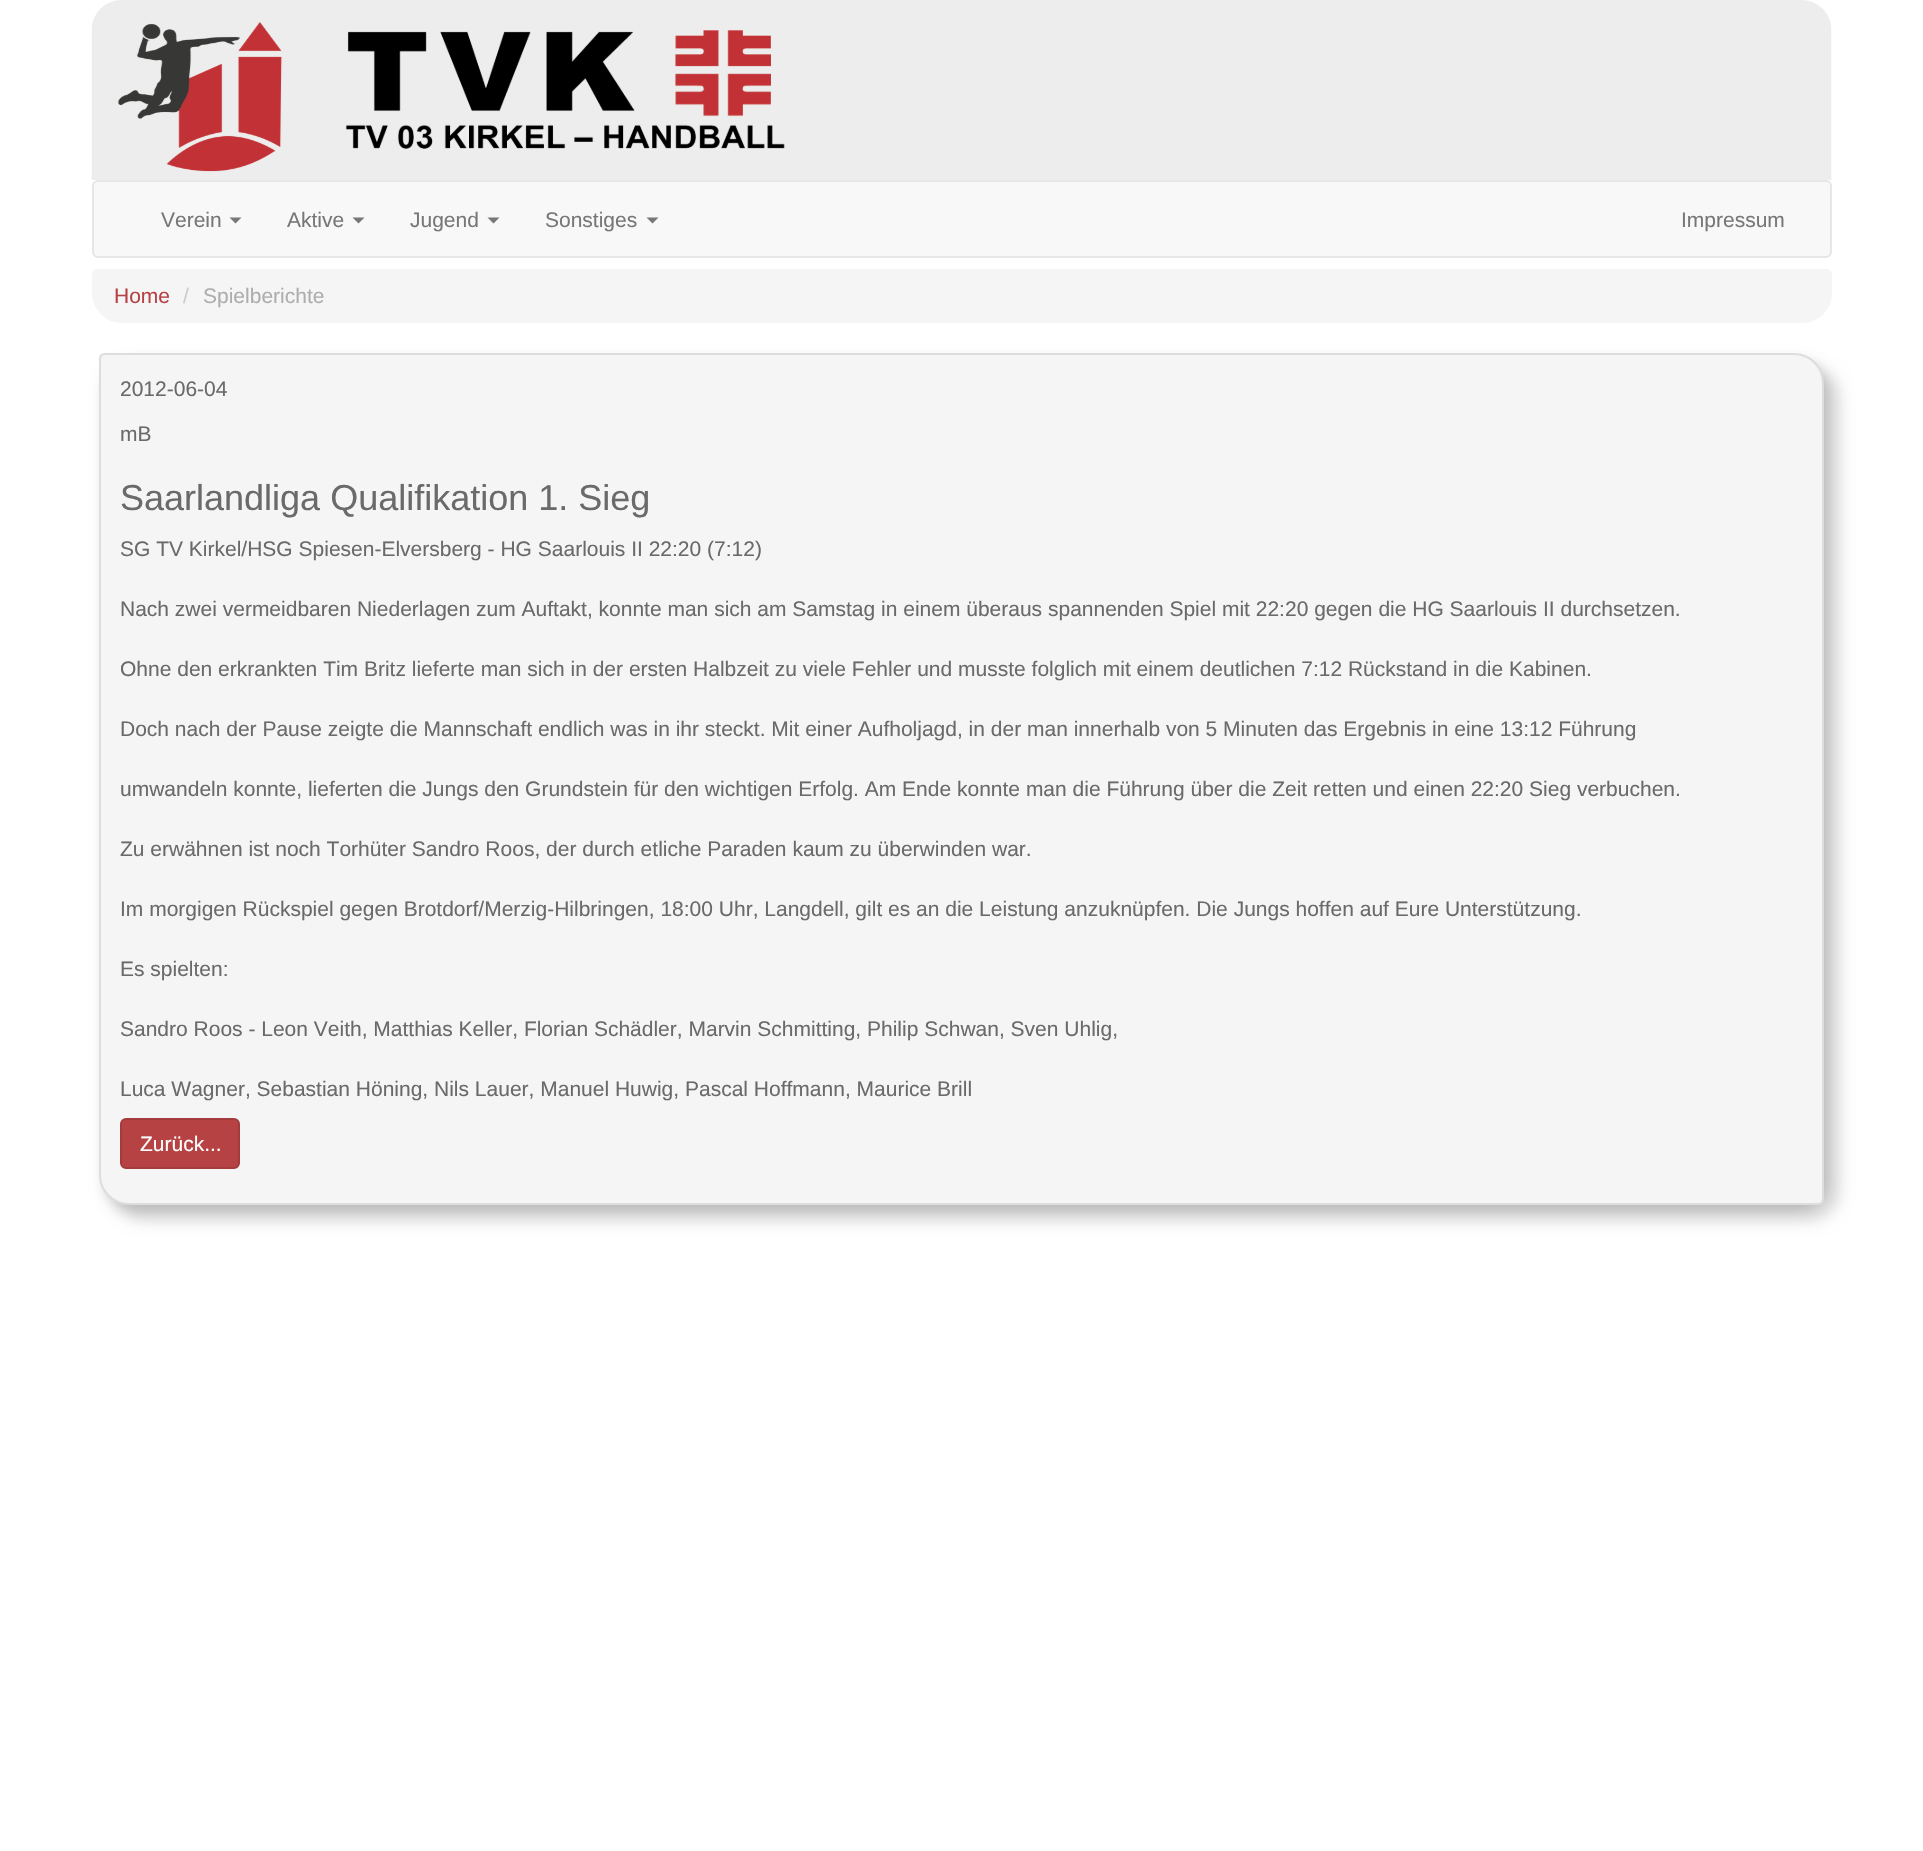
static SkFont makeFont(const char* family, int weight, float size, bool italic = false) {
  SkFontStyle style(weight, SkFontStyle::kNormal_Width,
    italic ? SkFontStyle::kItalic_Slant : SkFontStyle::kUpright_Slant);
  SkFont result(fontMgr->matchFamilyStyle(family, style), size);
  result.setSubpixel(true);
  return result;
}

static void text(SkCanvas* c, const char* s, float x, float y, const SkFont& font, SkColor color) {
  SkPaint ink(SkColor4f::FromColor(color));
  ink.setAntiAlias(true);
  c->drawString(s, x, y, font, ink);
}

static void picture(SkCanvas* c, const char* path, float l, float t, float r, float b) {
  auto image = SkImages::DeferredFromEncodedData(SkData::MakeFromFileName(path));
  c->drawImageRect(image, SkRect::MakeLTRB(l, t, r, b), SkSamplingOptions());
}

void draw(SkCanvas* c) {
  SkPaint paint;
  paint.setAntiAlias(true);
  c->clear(0xffffffff);
  picture(c, "img_01.png", 91, 0, 1832, 180);
  paint.setColor(0xfff8f8f8);
  c->drawRoundRect(SkRect::MakeLTRB(93, 181, 1831, 257), 5, 5, paint);
  paint.setStyle(SkPaint::kStroke_Style);
  paint.setStrokeWidth(2);
  paint.setColor(0xffe7e7e7);
  c->drawRoundRect(SkRect::MakeLTRB(93, 181, 1831, 257), 5, 5, paint);
  SkFont face1 = makeFont("Liberation Sans", 400, 21);
  text(c, "Verein", 161, 227, face1, 0xff777777);
  paint.setStyle(SkPaint::kFill_Style);
  paint.setColor(0xff777777);
  c->drawPath(SkPathBuilder().moveTo(229.5f, 217.5f).lineTo(241.5f, 217.5f).lineTo(235.5f, 223.5f).close().detach(), paint);
  text(c, "Aktive", 287, 227, face1, 0xff777777);
  c->drawPath(SkPathBuilder().moveTo(352.5f, 217.5f).lineTo(364.5f, 217.5f).lineTo(358.5f, 223.5f).close().detach(), paint);
  text(c, "Jugend", 410, 227, face1, 0xff777777);
  c->drawPath(SkPathBuilder().moveTo(487.5f, 217.5f).lineTo(499.5f, 217.5f).lineTo(493.5f, 223.5f).close().detach(), paint);
  text(c, "Sonstiges", 545, 227, face1, 0xff777777);
  c->drawPath(SkPathBuilder().moveTo(646.5f, 217.5f).lineTo(658.5f, 217.5f).lineTo(652.5f, 223.5f).close().detach(), paint);
  text(c, "Impressum", 1681, 227, face1, 0xff777777);
  paint.setColor(0xfff5f5f5);
  c->drawPath(SkPathBuilder().moveTo(98, 269).lineTo(1826, 269).cubicTo(1829.5f, 269, 1832, 271.5f, 1832, 275).lineTo(1832, 293).cubicTo(1832, 309.5f, 1818.5f, 323, 1802, 323).lineTo(122, 323).cubicTo(105.5f, 323, 92, 309.5f, 92, 293).lineTo(92, 275).cubicTo(92, 271.5f, 94.5f, 269, 98, 269).close().detach(), paint);
  text(c, "Home", 114, 303, face1, 0xffb64244);
  text(c, "/", 183, 303, face1, 0xffcccccc);
  text(c, "Spielberichte", 203, 303, face1, 0xffaeaeae);
  paint.setColor(0x1f000000);
  paint.setMaskFilter(SkMaskFilter::MakeBlur(kNormal_SkBlurStyle, 6));
  c->drawRoundRect(SkRect::MakeLTRB(102, 359, 1827, 1211), 30, 30, paint);
  paint.setMaskFilter(nullptr);
  paint.setColor(0x29000000);
  paint.setMaskFilter(SkMaskFilter::MakeBlur(kNormal_SkBlurStyle, 7.5f));
  c->drawRoundRect(SkRect::MakeLTRB(114, 368, 1839, 1220), 30, 30, paint);
  paint.setMaskFilter(nullptr);
  paint.setColor(0xfff5f5f5);
  c->drawPath(SkPathBuilder().moveTo(105, 354).lineTo(1794, 354).cubicTo(1810, 354, 1823, 367, 1823, 383).lineTo(1823, 1199).cubicTo(1823, 1202, 1821, 1204, 1818, 1204).lineTo(129, 1204).cubicTo(113, 1204, 100, 1191, 100, 1175).lineTo(100, 359).cubicTo(100, 356, 102, 354, 105, 354).close().detach(), paint);
  paint.setStyle(SkPaint::kStroke_Style);
  paint.setColor(0xffdddddd);
  c->drawPath(SkPathBuilder().moveTo(105, 354).lineTo(1794, 354).cubicTo(1810, 354, 1823, 367, 1823, 383).lineTo(1823, 1199).cubicTo(1823, 1202, 1821, 1204, 1818, 1204).lineTo(129, 1204).cubicTo(113, 1204, 100, 1191, 100, 1175).lineTo(100, 359).cubicTo(100, 356, 102, 354, 105, 354).close().detach(), paint);
  text(c, "2012-06-04", 120, 396, face1, 0xff6a6a6a);
  text(c, "mB", 120, 441, face1, 0xff6a6a6a);
  SkFont face2 = makeFont("Liberation Sans", 400, 36);
  text(c, "Saarlandliga Qualifikation 1. Sieg", 120, 510, face2, 0xff6a6a6a);
  text(c, "SG TV Kirkel/HSG Spiesen-Elversberg - HG Saarlouis II 22:20 (7:12)", 120, 556, face1, 0xff6a6a6a);
  text(c, "Nach zwei vermeidbaren Niederlagen zum Auftakt, konnte man sich am Samstag in einem überaus spannenden Spiel mit 22:20 gegen die HG Saarlouis II durchsetzen.", 120, 616, face1, 0xff6a6a6a);
  text(c, "Ohne den erkrankten Tim Britz lieferte man sich in der ersten Halbzeit zu viele Fehler und musste folglich mit einem deutlichen 7:12 Rückstand in die Kabinen.", 120, 676, face1, 0xff6a6a6a);
  text(c, "Doch nach der Pause zeigte die Mannschaft endlich was in ihr steckt. Mit einer Aufholjagd, in der man innerhalb von 5 Minuten das Ergebnis in eine 13:12 Führung", 120, 736, face1, 0xff6a6a6a);
  text(c, "umwandeln konnte, lieferten die Jungs den Grundstein für den wichtigen Erfolg. Am Ende konnte man die Führung über die Zeit retten und einen 22:20 Sieg verbuchen.", 120, 796, face1, 0xff6a6a6a);
  text(c, "Zu erwähnen ist noch Torhüter Sandro Roos, der durch etliche Paraden kaum zu überwinden war.", 120, 856, face1, 0xff6a6a6a);
  text(c, "Im morgigen Rückspiel gegen Brotdorf/Merzig-Hilbringen, 18:00 Uhr, Langdell, gilt es an die Leistung anzuknüpfen. Die Jungs hoffen auf Eure Unterstützung.", 120, 916, face1, 0xff6a6a6a);
  text(c, "Es spielten:", 120, 976, face1, 0xff6a6a6a);
  text(c, "Sandro Roos - Leon Veith, Matthias Keller, Florian Schädler, Marvin Schmitting, Philip Schwan, Sven Uhlig,", 120, 1036, face1, 0xff6a6a6a);
  text(c, "Luca Wagner, Sebastian Höning, Nils Lauer, Manuel Huwig, Pascal Hoffmann, Maurice Brill", 120, 1096, face1, 0xff6a6a6a);
  paint.setStyle(SkPaint::kFill_Style);
  paint.setColor(0xffb64244);
  c->drawRoundRect(SkRect::MakeLTRB(121, 1119, 239, 1168), 5, 5, paint);
  paint.setStyle(SkPaint::kStroke_Style);
  paint.setColor(0xffa33b3d);
  c->drawRoundRect(SkRect::MakeLTRB(121, 1119, 239, 1168), 5, 5, paint);
  text(c, "Zurück...", 140, 1151, face1, 0xffffffff);
}
